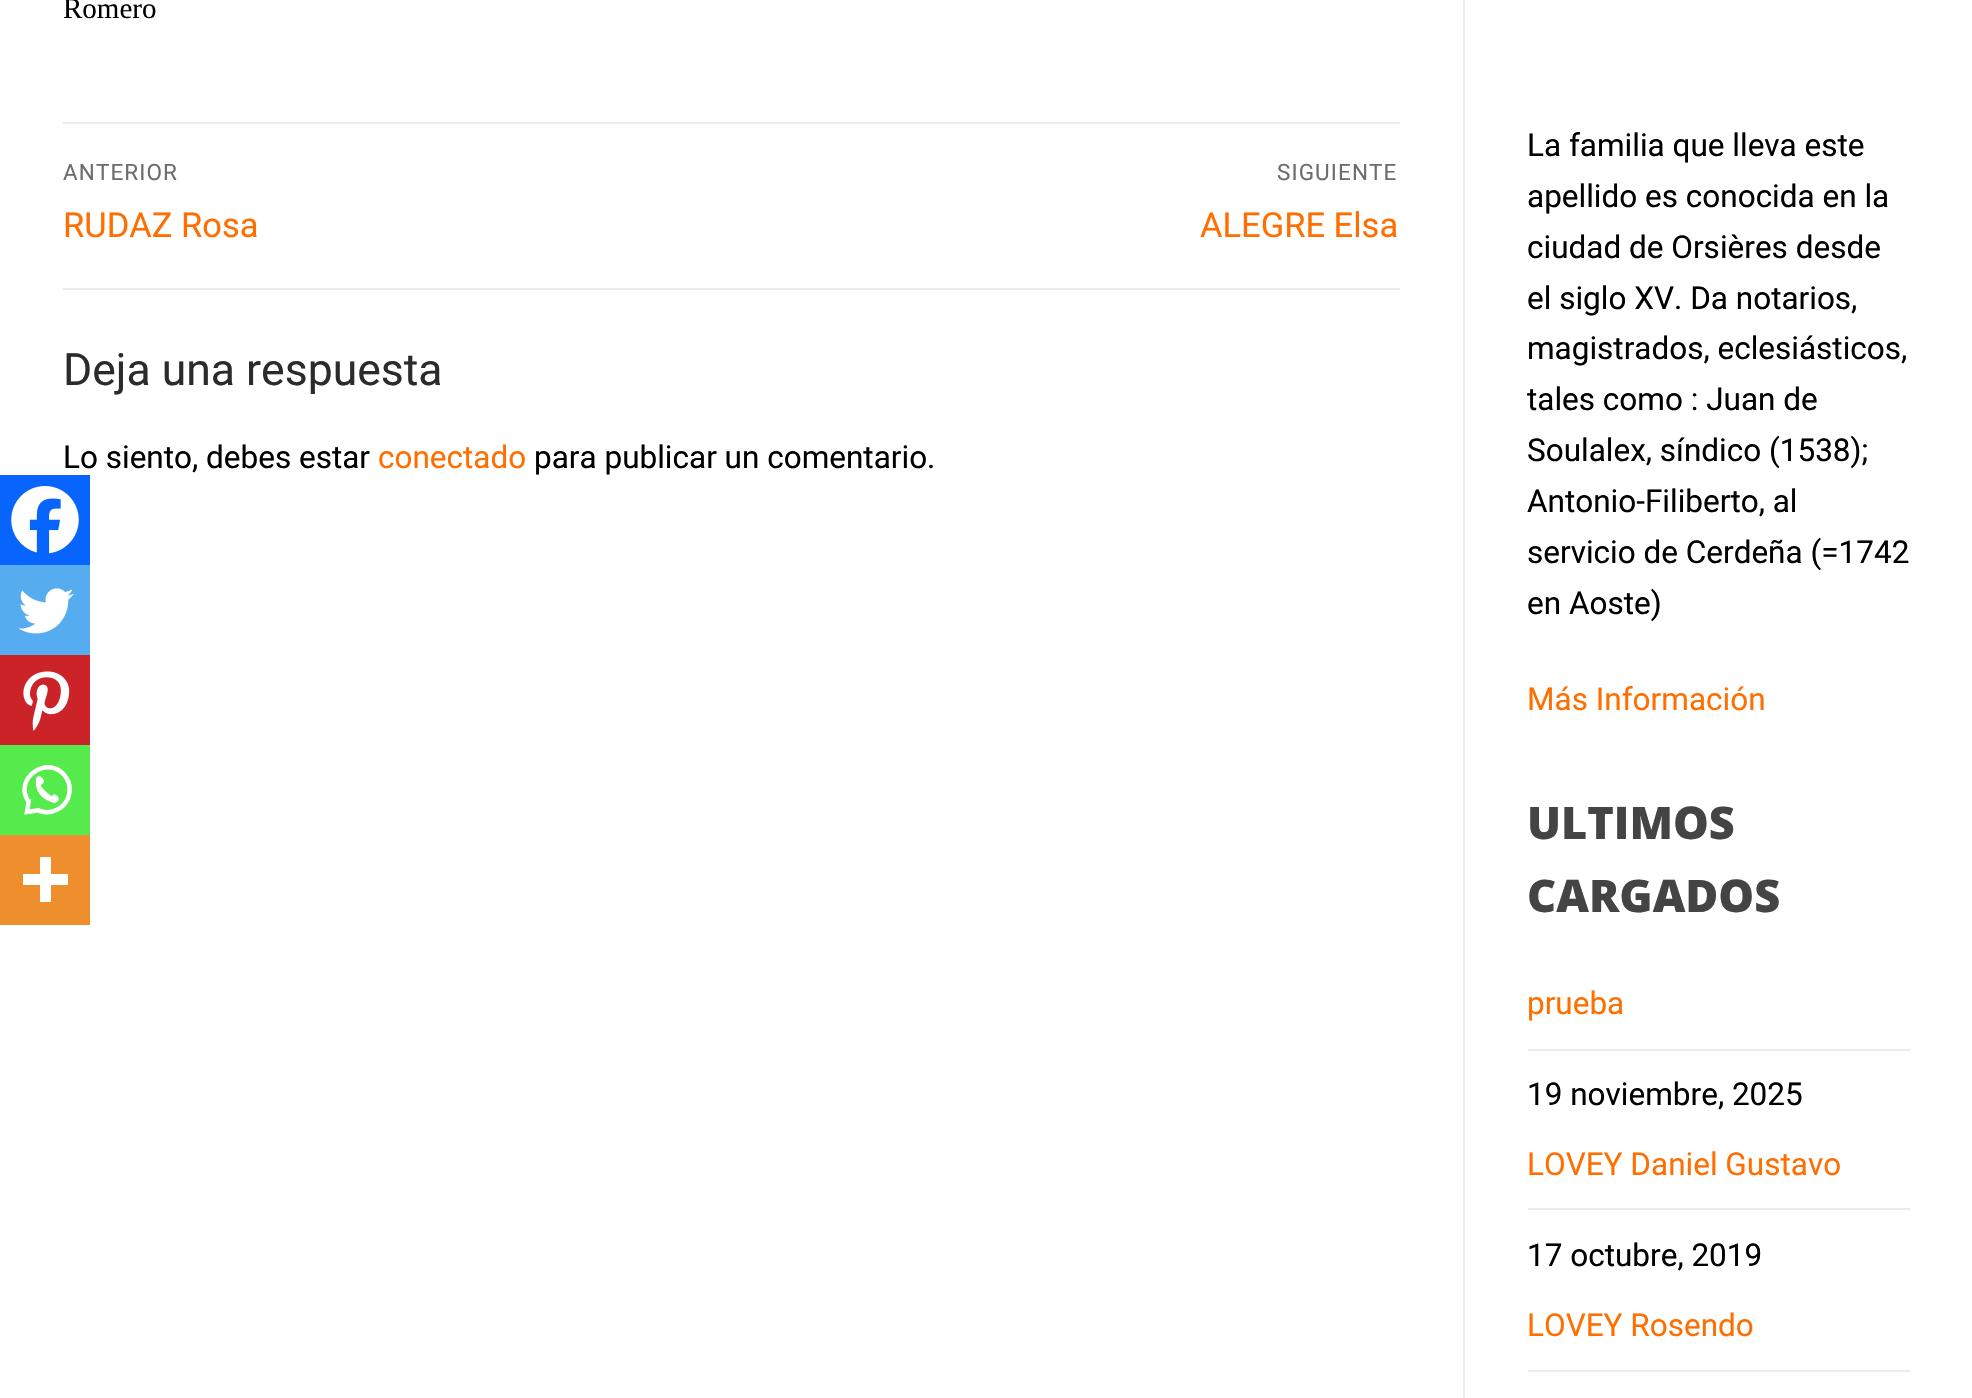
static SkFont makeFont(const char* family, int weight, float size, bool italic = false) {
  SkFontStyle style(weight, SkFontStyle::kNormal_Width,
    italic ? SkFontStyle::kItalic_Slant : SkFontStyle::kUpright_Slant);
  SkFont result(fontMgr->matchFamilyStyle(family, style), size);
  result.setSubpixel(true);
  return result;
}

static void text(SkCanvas* c, const char* s, float x, float y, const SkFont& font, SkColor color) {
  SkPaint ink(SkColor4f::FromColor(color));
  ink.setAntiAlias(true);
  c->drawString(s, x, y, font, ink);
}

static void spacedText(SkCanvas* c, const char* s, float x, float y, const SkFont& font, const SkPaint& ink, float letter, float word) {
  std::vector<SkGlyphID> glyphs(font.countText(s, strlen(s), SkTextEncoding::kUTF8));
  std::vector<float> xs(glyphs.size());
  font.textToGlyphs(s, strlen(s), SkTextEncoding::kUTF8, glyphs);
  font.getXPos(glyphs, xs, x);
  float extra = 0;
  for (size_t i = 0; i < glyphs.size(); i++) {
    xs[i] += extra;
    extra += letter + word * (glyphs[i] == font.unicharToGlyph(' '));
  }
  c->drawTextBlob(SkTextBlob::MakeFromPosHGlyphs(glyphs, xs, y, font), 0, 0, ink);
}

static void box(SkCanvas* c, float l, float t, float r, float b, SkColor color) {
  SkPaint ink(SkColor4f::FromColor(color));
  ink.setAntiAlias(true);
  c->drawRect(SkRect::MakeLTRB(l, t, r, b), ink);
}

static void picture(SkCanvas* c, const char* path, float l, float t, float r, float b) {
  auto image = SkImages::DeferredFromEncodedData(SkData::MakeFromFileName(path));
  c->drawImageRect(image, SkRect::MakeLTRB(l, t, r, b), SkSamplingOptions());
}

void draw(SkCanvas* c) {
  SkPaint paint;
  paint.setAntiAlias(true);
  c->clear(0xffffffff);
  box(c, 1463, 0, 1465, 1398, 0xffeaecee);
  SkFont face1 = makeFont("Liberation Serif", 400, 29);
  text(c, "Romero", 63, 18, face1, 0xff000000);
  box(c, 0, 475, 90, 565, 0xff0765fe);
  picture(c, "img_01.png", 11, 486, 79, 554);
  box(c, 0, 565, 90, 655, 0xff55acee);
  picture(c, "img_02.png", 18, 588, 74, 634);
  box(c, 0, 655, 90, 745, 0xffcc2329);
  picture(c, "img_03.png", 23, 671, 70, 731);
  box(c, 0, 745, 90, 835, 0xff55eb4c);
  paint.setStyle(SkPaint::kStroke_Style);
  paint.setStrokeWidth(4.5f);
  paint.setColor(0xffffffff);
  c->drawPath(SkPathBuilder().moveTo(39.5f, 811).cubicTo(51.5f, 815, 64.5f, 808.5f, 68.5f, 797).cubicTo(70.5f, 790.5f, 70, 783.5f, 66.5f, 778).cubicTo(50, 752, 11.5f, 778, 29, 802.5f).moveTo(29, 799).lineTo(27, 812).lineTo(40.5f, 810).detach(), paint);
  paint.setStyle(SkPaint::kFill_Style);
  c->drawPath(SkPathBuilder().moveTo(36, 778.5f).cubicTo(34.5f, 790.5f, 40.5f, 799, 54, 803).cubicTo(65, 801, 54, 790, 52, 796.5f).cubicTo(46, 792, 42, 788, 40.5f, 785).cubicTo(49.5f, 781, 38, 774, 38, 776).detach(), paint);
  box(c, 0, 835, 90, 925, 0xffee8e2d);
  c->drawPath(SkPathBuilder(SkPathFillType::kEvenOdd).moveTo(51, 874).lineTo(51, 857).lineTo(40, 857).lineTo(40, 874).lineTo(23, 874).lineTo(23, 885).lineTo(40, 885).lineTo(40, 902).lineTo(51, 902).lineTo(51, 885).lineTo(68, 885).lineTo(68, 874).close().detach(), paint);
  box(c, 63, 122, 1400, 124, 0xffeaecee);
  box(c, 63, 288, 1400, 290, 0xffeaecee);
  SkFont face2 = makeFont("Roboto", 400, 22.5f);
  paint.setColor(0xff6d6d6d);
  spacedText(c, "ANTERIOR", 63, 180, face2, paint, 1.1f, 0);
  SkFont face3 = makeFont("Roboto", 400, 34.5f);
  text(c, "RUDAZ Rosa", 63, 237, face3, 0xffff6e00);
  spacedText(c, "SIGUIENTE", 1277, 180, face2, paint, 1.1f, 0);
  text(c, "ALEGRE Elsa", 1200, 237, face3, 0xffff6e00);
  SkFont face4 = makeFont("Roboto", 400, 44.5f);
  text(c, "Deja una respuesta", 63, 385, face4, 0xff2b2b2b);
  SkFont face5 = makeFont("Roboto", 400, 31.5f);
  text(c, "Lo siento, debes estar", 63, 468, face5, 0xff000000);
  text(c, "conectado", 378, 468, face5, 0xffff6e00);
  text(c, "para publicar un comentario.", 534, 468, face5, 0xff000000);
  text(c, "La familia que lleva este", 1527, 156, face5, 0xff000000);
  text(c, "apellido es conocida en la", 1527, 207, face5, 0xff000000);
  text(c, "ciudad de Orsières desde", 1527, 258, face5, 0xff000000);
  text(c, "el siglo XV. Da notarios,", 1527, 309, face5, 0xff000000);
  text(c, "magistrados, eclesiásticos,", 1527, 359, face5, 0xff000000);
  text(c, "tales como : Juan de", 1527, 410, face5, 0xff000000);
  text(c, "Soulalex, síndico (1538);", 1527, 461, face5, 0xff000000);
  text(c, "Antonio-Filiberto, al", 1527, 512, face5, 0xff000000);
  text(c, "servicio de Cerdeña (=1742", 1527, 563, face5, 0xff000000);
  text(c, "en Aoste)", 1527, 614, face5, 0xff000000);
  text(c, "Más Información", 1527, 710, face5, 0xffff6e00);
  SkFont face6 = makeFont("Open Sans", 800, 45);
  text(c, "ULTIMOS", 1527, 839, face6, 0xff444444);
  text(c, "CARGADOS", 1527, 912, face6, 0xff444444);
  box(c, 1528, 1049, 1910, 1051, 0xffeaecee);
  text(c, "prueba", 1527, 1014, face5, 0xffff6e00);
  text(c, "19 noviembre, 2025", 1527, 1105, face5, 0xff000000);
  box(c, 1528, 1208, 1910, 1210, 0xffeaecee);
  text(c, "LOVEY Daniel Gustavo", 1527, 1175, face5, 0xffff6e00);
  text(c, "17 octubre, 2019", 1527, 1266, face5, 0xff000000);
  box(c, 1528, 1370, 1910, 1372, 0xffeaecee);
  text(c, "LOVEY Rosendo", 1527, 1336, face5, 0xffff6e00);
}
